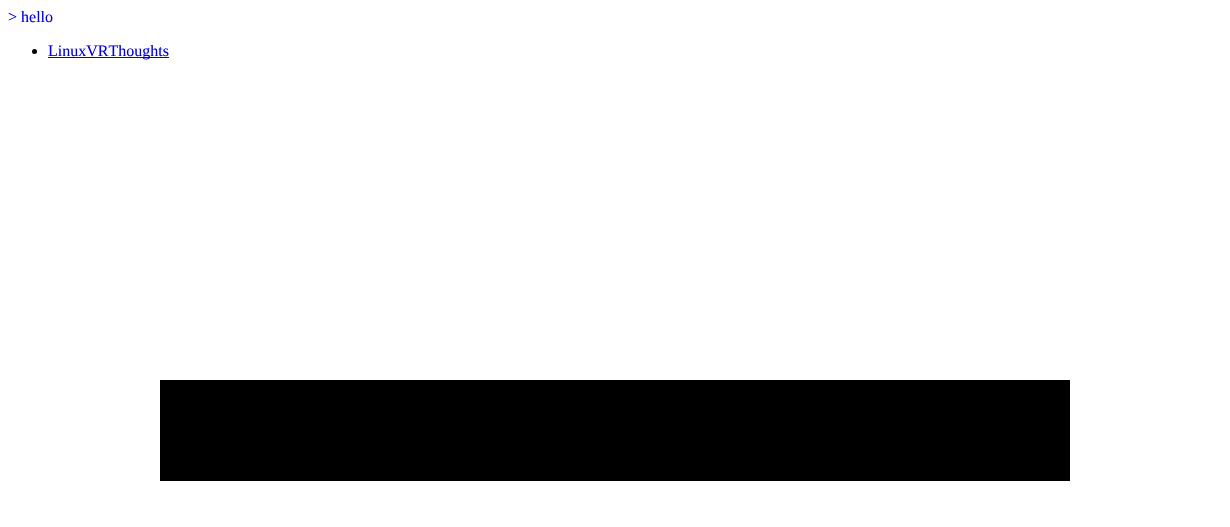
static SkFont makeFont(const char* family, int weight, float size, bool italic = false) {
  SkFontStyle style(weight, SkFontStyle::kNormal_Width,
    italic ? SkFontStyle::kItalic_Slant : SkFontStyle::kUpright_Slant);
  SkFont result(fontMgr->matchFamilyStyle(family, style), size);
  result.setSubpixel(true);
  return result;
}

static void text(SkCanvas* c, const char* s, float x, float y, const SkFont& font, SkColor color) {
  SkPaint ink(SkColor4f::FromColor(color));
  ink.setAntiAlias(true);
  c->drawString(s, x, y, font, ink);
}

static void box(SkCanvas* c, float l, float t, float r, float b, SkColor color) {
  SkPaint ink(SkColor4f::FromColor(color));
  ink.setAntiAlias(true);
  c->drawRect(SkRect::MakeLTRB(l, t, r, b), ink);
}

void draw(SkCanvas* c) {
  SkPaint paint;
  paint.setAntiAlias(true);
  c->clear(0xffffffff);
  SkFont face1 = makeFont("Liberation Serif", 400, 16);
  text(c, "> hello", 8, 22, face1, 0xff0000ee);
  paint.setColor(0xff000000);
  c->drawCircle(34.5f, 51.5f, 2.5f, paint);
  box(c, 48, 57, 169, 58, 0xff0000ee);
  text(c, "LinuxVRThoughts", 48, 56, face1, 0xff0000ee);
  c->drawPath(SkPathBuilder().moveTo(160, 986).lineTo(1070, 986).lineTo(1070, 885).lineTo(160, 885).close().moveTo(160, 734).lineTo(1070, 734).lineTo(1070, 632).lineTo(160, 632).close().moveTo(160, 380).lineTo(160, 481).lineTo(1070, 481).lineTo(1070, 380).close().detach(), paint);
}
